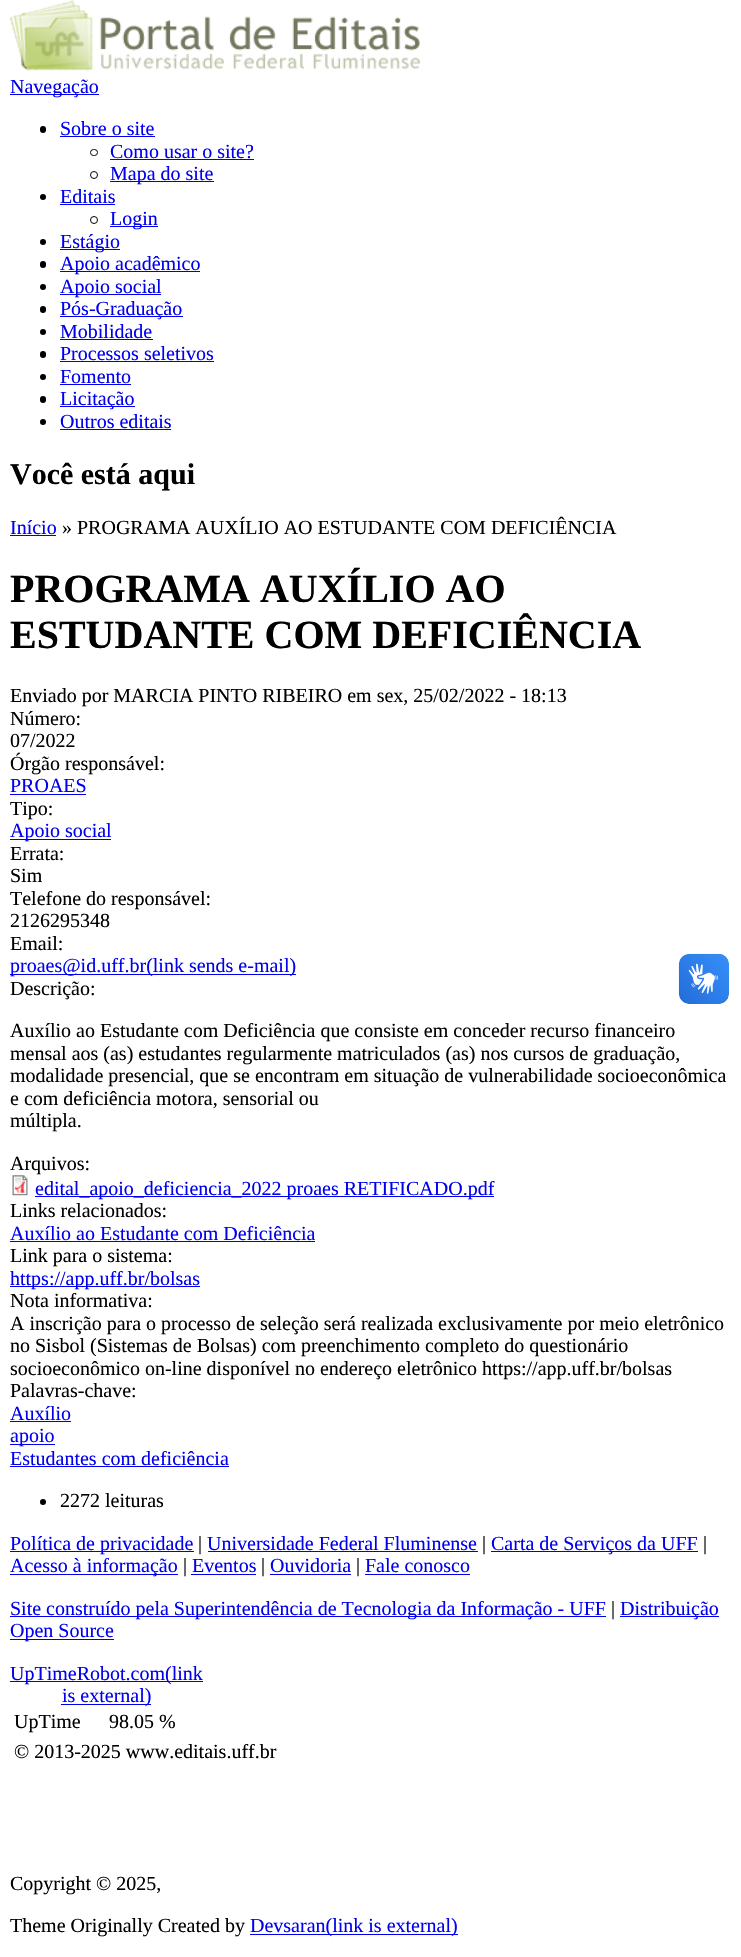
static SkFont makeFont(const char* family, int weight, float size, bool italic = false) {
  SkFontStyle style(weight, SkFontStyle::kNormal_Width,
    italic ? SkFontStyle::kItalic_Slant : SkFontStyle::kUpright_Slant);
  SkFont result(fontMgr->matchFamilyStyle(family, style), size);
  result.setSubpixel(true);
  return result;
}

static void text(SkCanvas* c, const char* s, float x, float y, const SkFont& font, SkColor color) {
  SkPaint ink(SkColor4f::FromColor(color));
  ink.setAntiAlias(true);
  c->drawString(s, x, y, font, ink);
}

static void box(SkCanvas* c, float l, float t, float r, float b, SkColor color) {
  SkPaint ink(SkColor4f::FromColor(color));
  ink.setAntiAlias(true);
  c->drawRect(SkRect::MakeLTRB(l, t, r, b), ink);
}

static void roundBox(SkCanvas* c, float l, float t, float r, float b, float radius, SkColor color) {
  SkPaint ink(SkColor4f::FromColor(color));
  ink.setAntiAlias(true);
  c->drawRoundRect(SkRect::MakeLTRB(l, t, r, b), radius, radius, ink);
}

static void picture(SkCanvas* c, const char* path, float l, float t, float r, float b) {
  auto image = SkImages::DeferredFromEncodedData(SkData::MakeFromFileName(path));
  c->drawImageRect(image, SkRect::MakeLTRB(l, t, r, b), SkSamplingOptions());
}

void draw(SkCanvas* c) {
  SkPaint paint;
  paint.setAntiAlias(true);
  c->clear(0xffffffff);
  picture(c, "img_01.png", 10, 0, 420, 71);
  box(c, 10, 94, 99, 95, 0xff0000ee);
  SkFont face1 = makeFont("Liberation Serif", 400, 20);
  text(c, "Navegação", 10, 93, face1, 0xff0000ee);
  roundBox(c, 40, 126, 46, 133, 3, 0xff000000);
  text(c, "Sobre o site", 60, 135, face1, 0xff0000ee);
  box(c, 60, 136, 155, 137, 0xff0000ee);
  paint.setStyle(SkPaint::kStroke_Style);
  paint.setStrokeWidth(1);
  paint.setColor(0xff000000);
  c->drawRoundRect(SkRect::MakeLTRB(90.5f, 149.5f, 97.5f, 155.5f), 3, 3, paint);
  text(c, "Como usar o site?", 110, 158, face1, 0xff0000ee);
  box(c, 110, 159, 254, 160, 0xff0000ee);
  c->drawCircle(94, 175, 3.5f, paint);
  box(c, 110, 181, 214, 182, 0xff0000ee);
  text(c, "Mapa do site", 110, 180, face1, 0xff0000ee);
  paint.setStyle(SkPaint::kFill_Style);
  c->drawCircle(43, 197, 3, paint);
  text(c, "Editais", 60, 203, face1, 0xff0000ee);
  box(c, 60, 204, 115, 205, 0xff0000ee);
  paint.setStyle(SkPaint::kStroke_Style);
  c->drawCircle(94, 220, 3.5f, paint);
  box(c, 110, 226, 158, 227, 0xff0000ee);
  text(c, "Login", 110, 225, face1, 0xff0000ee);
  paint.setStyle(SkPaint::kFill_Style);
  c->drawCircle(43, 242, 3, paint);
  box(c, 60, 249, 120, 250, 0xff0000ee);
  text(c, "Estágio", 60, 248, face1, 0xff0000ee);
  roundBox(c, 40, 261, 46, 268, 3, 0xff000000);
  box(c, 60, 271, 200, 272, 0xff0000ee);
  text(c, "Apoio acadêmico", 60, 270, face1, 0xff0000ee);
  c->drawCircle(43, 287, 3, paint);
  box(c, 60, 294, 161, 295, 0xff0000ee);
  text(c, "Apoio social", 60, 293, face1, 0xff0000ee);
  roundBox(c, 40, 306, 46, 313, 3, 0xff000000);
  box(c, 60, 316, 183, 317, 0xff0000ee);
  text(c, "Pós-Graduação", 60, 315, face1, 0xff0000ee);
  c->drawCircle(43, 332, 3, paint);
  text(c, "Mobilidade", 60, 338, face1, 0xff0000ee);
  box(c, 60, 339, 153, 340, 0xff0000ee);
  roundBox(c, 40, 351, 46, 358, 3, 0xff000000);
  text(c, "Processos seletivos", 60, 360, face1, 0xff0000ee);
  box(c, 60, 361, 214, 362, 0xff0000ee);
  c->drawCircle(43, 377, 3, paint);
  text(c, "Fomento", 60, 383, face1, 0xff0000ee);
  box(c, 60, 384, 131, 385, 0xff0000ee);
  roundBox(c, 40, 396, 46, 403, 3, 0xff000000);
  box(c, 60, 406, 135, 407, 0xff0000ee);
  text(c, "Licitação", 60, 405, face1, 0xff0000ee);
  c->drawCircle(43, 422, 3, paint);
  text(c, "Outros editais", 60, 428, face1, 0xff0000ee);
  box(c, 60, 429, 171, 430, 0xff0000ee);
  SkFont face2 = makeFont("Liberation Serif", 700, 30);
  text(c, "Você está aqui", 10, 484, face2, 0xff000000);
  text(c, "Início", 10, 534, face1, 0xff0000ee);
  box(c, 10, 535, 56, 536, 0xff0000ee);
  text(c, "» PROGRAMA AUXÍLIO AO ESTUDANTE COM DEFICIÊNCIA", 62, 534, face1, 0xff000000);
  SkFont face3 = makeFont("Liberation Serif", 700, 40);
  text(c, "PROGRAMA AUXÍLIO AO", 10, 602, face3, 0xff000000);
  text(c, "ESTUDANTE COM DEFICIÊNCIA", 10, 648, face3, 0xff000000);
  text(c, "Enviado por MARCIA PINTO RIBEIRO em sex, 25/02/2022 - 18:13", 10, 702, face1, 0xff000000);
  text(c, "Número:", 10, 725, face1, 0xff000000);
  text(c, "07/2022", 10, 747, face1, 0xff000000);
  text(c, "Órgão responsável:", 10, 770, face1, 0xff000000);
  text(c, "PROAES", 10, 792, face1, 0xff0000ee);
  box(c, 10, 794, 86, 795, 0xff0000ee);
  text(c, "Tipo:", 10, 815, face1, 0xff000000);
  box(c, 10, 839, 111, 840, 0xff0000ee);
  text(c, "Apoio social", 10, 837, face1, 0xff0000ee);
  text(c, "Errata:", 10, 860, face1, 0xff000000);
  text(c, "Sim", 10, 882, face1, 0xff000000);
  text(c, "Telefone do responsável:", 10, 905, face1, 0xff000000);
  text(c, "2126295348", 10, 927, face1, 0xff000000);
  text(c, "Email:", 10, 950, face1, 0xff000000);
  box(c, 10, 974, 296, 975, 0xff0000ee);
  text(c, "proaes@id.uff.br(link sends e-mail)", 10, 972, face1, 0xff0000ee);
  text(c, "Descrição:", 10, 995, face1, 0xff000000);
  text(c, "Auxílio ao Estudante com Deficiência que consiste em conceder recurso financeiro", 10, 1037, face1, 0xff000000);
  text(c, "mensal aos (as) estudantes regularmente matriculados (as) nos cursos de graduação,", 10, 1060, face1, 0xff000000);
  text(c, "modalidade presencial, que se encontram em situação de vulnerabilidade socioeconômica", 10, 1082, face1, 0xff000000);
  text(c, "e com deficiência motora, sensorial ou", 10, 1105, face1, 0xff000000);
  text(c, "múltipla.", 10, 1127, face1, 0xff000000);
  text(c, "Arquivos:", 10, 1170, face1, 0xff000000);
  picture(c, "img_02.png", 12, 1175, 28, 1196);
  box(c, 35, 1196, 494, 1197, 0xff0000ee);
  text(c, "edital_apoio_deficiencia_2022 proaes RETIFICADO.pdf", 35, 1195, face1, 0xff0000ee);
  text(c, "Links relacionados:", 10, 1217, face1, 0xff000000);
  text(c, "Auxílio ao Estudante com Deficiência", 10, 1240, face1, 0xff0000ee);
  box(c, 10, 1241, 315, 1242, 0xff0000ee);
  text(c, "Link para o sistema:", 10, 1262, face1, 0xff000000);
  box(c, 10, 1286, 200, 1287, 0xff0000ee);
  text(c, "https://app.uff.br/bolsas", 10, 1285, face1, 0xff0000ee);
  text(c, "Nota informativa:", 10, 1307, face1, 0xff000000);
  text(c, "A inscrição para o processo de seleção será realizada exclusivamente por meio eletrônico", 10, 1330, face1, 0xff000000);
  text(c, "no Sisbol (Sistemas de Bolsas) com preenchimento completo do questionário", 10, 1352, face1, 0xff000000);
  text(c, "socioeconômico on-line disponível no endereço eletrônico https://app.uff.br/bolsas", 10, 1375, face1, 0xff000000);
  text(c, "Palavras-chave:", 10, 1397, face1, 0xff000000);
  text(c, "Auxílio", 10, 1420, face1, 0xff0000ee);
  box(c, 10, 1421, 71, 1422, 0xff0000ee);
  box(c, 10, 1444, 55, 1445, 0xff0000ee);
  text(c, "apoio", 10, 1442, face1, 0xff0000ee);
  text(c, "Estudantes com deficiência", 10, 1465, face1, 0xff0000ee);
  box(c, 10, 1466, 229, 1467, 0xff0000ee);
  c->drawCircle(43, 1502, 3, paint);
  text(c, "2272 leituras", 60, 1507, face1, 0xff000000);
  box(c, 10, 1551, 194, 1552, 0xff0000ee);
  text(c, "Política de privacidade", 10, 1550, face1, 0xff0000ee);
  text(c, "|", 198, 1550, face1, 0xff000000);
  text(c, "Universidade Federal Fluminense", 207, 1550, face1, 0xff0000ee);
  box(c, 208, 1551, 478, 1552, 0xff0000ee);
  text(c, "|", 482, 1550, face1, 0xff000000);
  box(c, 491, 1551, 698, 1552, 0xff0000ee);
  text(c, "Carta de Serviços da UFF", 491, 1550, face1, 0xff0000ee);
  text(c, "|", 703, 1550, face1, 0xff000000);
  box(c, 10, 1574, 178, 1575, 0xff0000ee);
  text(c, "Acesso à informação", 10, 1572, face1, 0xff0000ee);
  text(c, "|", 183, 1572, face1, 0xff000000);
  text(c, "Eventos", 192, 1572, face1, 0xff0000ee);
  box(c, 191, 1574, 256, 1575, 0xff0000ee);
  text(c, "|", 261, 1572, face1, 0xff000000);
  text(c, "Ouvidoria", 270, 1572, face1, 0xff0000ee);
  box(c, 270, 1574, 351, 1575, 0xff0000ee);
  text(c, "|", 356, 1572, face1, 0xff000000);
  text(c, "Fale conosco", 365, 1572, face1, 0xff0000ee);
  box(c, 365, 1574, 470, 1575, 0xff0000ee);
  box(c, 10, 1616, 606, 1617, 0xff0000ee);
  text(c, "Site construído pela Superintendência de Tecnologia da Informação - UFF", 10, 1615, face1, 0xff0000ee);
  text(c, "|", 611, 1615, face1, 0xff000000);
  box(c, 620, 1616, 719, 1617, 0xff0000ee);
  text(c, "Distribuição", 620, 1615, face1, 0xff0000ee);
  box(c, 10, 1639, 114, 1640, 0xff0000ee);
  text(c, "Open Source", 10, 1637, face1, 0xff0000ee);
  box(c, 10, 1681, 203, 1682, 0xff0000ee);
  text(c, "UpTimeRobot.com(link", 10, 1680, face1, 0xff0000ee);
  box(c, 61, 1704, 151, 1705, 0xff0000ee);
  text(c, "is external)", 62, 1702, face1, 0xff0000ee);
  text(c, "UpTime", 14, 1728, face1, 0xff000000);
  text(c, "98.05 %", 109, 1728, face1, 0xff000000);
  text(c, "© 2013-2025 www.editais.uff.br", 14, 1758, face1, 0xff000000);
  text(c, "Copyright © 2025,", 10, 1890, face1, 0xff000000);
  text(c, "Theme Originally Created by", 10, 1932, face1, 0xff000000);
  box(c, 250, 1934, 458, 1935, 0xff0000ee);
  text(c, "Devsaran(link is external)", 250, 1932, face1, 0xff0000ee);
  picture(c, "img_03.png", 678, 953, 729, 1004);
  picture(c, "img_04.png", 679, 954, 729, 1004);
}
